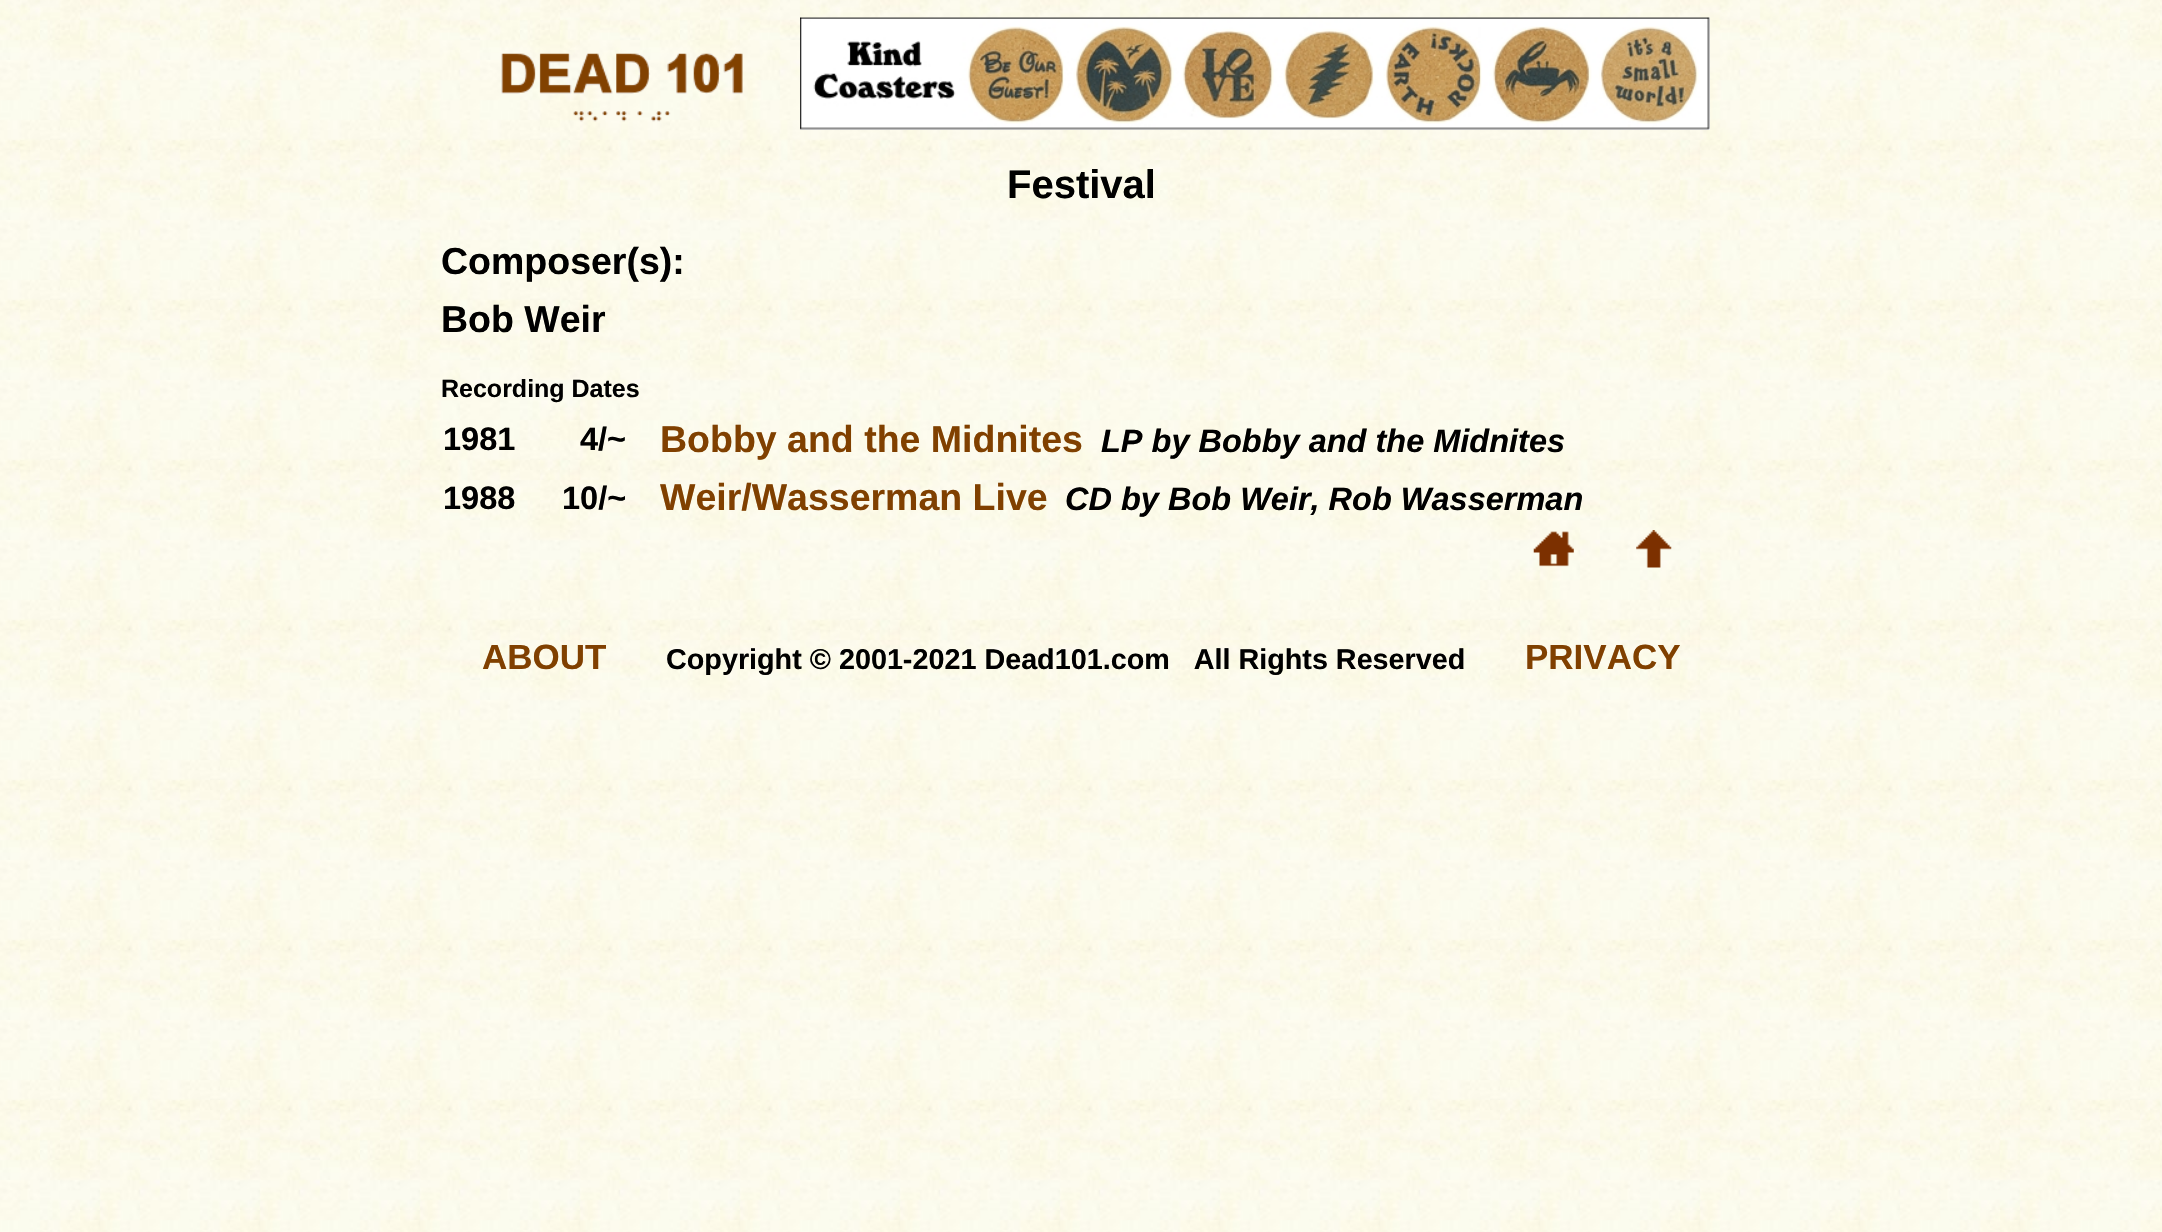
static SkFont makeFont(const char* family, int weight, float size, bool italic = false) {
  SkFontStyle style(weight, SkFontStyle::kNormal_Width,
    italic ? SkFontStyle::kItalic_Slant : SkFontStyle::kUpright_Slant);
  SkFont result(fontMgr->matchFamilyStyle(family, style), size);
  result.setSubpixel(true);
  return result;
}

static void text(SkCanvas* c, const char* s, float x, float y, const SkFont& font, SkColor color) {
  SkPaint ink(SkColor4f::FromColor(color));
  ink.setAntiAlias(true);
  c->drawString(s, x, y, font, ink);
}

static void picture(SkCanvas* c, const char* path, float l, float t, float r, float b) {
  auto image = SkImages::DeferredFromEncodedData(SkData::MakeFromFileName(path));
  c->drawImageRect(image, SkRect::MakeLTRB(l, t, r, b), SkSamplingOptions());
}

void draw(SkCanvas* c) {
  SkPaint paint;
  paint.setAntiAlias(true);
  c->clear(0xffffffff);
  picture(c, "img_01.png", 0, 0, 2162, 1232);
  picture(c, "img_02.png", 501, 53, 743, 122);
  picture(c, "img_03.png", 800, 17, 1710, 130);
  SkFont face1 = makeFont("Liberation Sans", 700, 40);
  text(c, "Festival", 1007, 198, face1, 0xff000000);
  SkFont face2 = makeFont("Liberation Sans", 700, 37.5f);
  text(c, "Composer(s):", 441, 274, face2, 0xff000000);
  text(c, "Bob Weir", 441, 332, face2, 0xff000000);
  SkFont face3 = makeFont("Liberation Sans", 700, 25);
  text(c, "Recording Dates", 441, 397, face3, 0xff000000);
  SkFont face4 = makeFont("Liberation Sans", 700, 32.5f);
  text(c, "1981", 443, 450, face4, 0xff000000);
  text(c, "4/~", 580, 450, face4, 0xff000000);
  text(c, "Bobby and the Midnites", 660, 452, face2, 0xff804000);
  SkFont face5 = makeFont("Liberation Sans", 700, 32.5f, true);
  text(c, "LP by Bobby and the Midnites", 1101, 452, face5, 0xff000000);
  text(c, "1988", 443, 509, face4, 0xff000000);
  text(c, "10/~", 562, 509, face4, 0xff000000);
  text(c, "Weir/Wasserman Live", 660, 510, face2, 0xff804000);
  text(c, "CD by Bob Weir, Rob Wasserman", 1065, 510, face5, 0xff000000);
  picture(c, "img_04.png", 1533, 531, 1574, 567);
  picture(c, "img_05.png", 1636, 530, 1672, 568);
  SkFont face6 = makeFont("Liberation Sans", 700, 35);
  text(c, "ABOUT", 482, 669, face6, 0xff804000);
  SkFont face7 = makeFont("Liberation Sans", 700, 28.75f);
  text(c, "Copyright © 2001-2021 Dead101.com   All Rights Reserved", 666, 669, face7, 0xff000000);
  text(c, "PRIVACY", 1525, 669, face6, 0xff804000);
}
